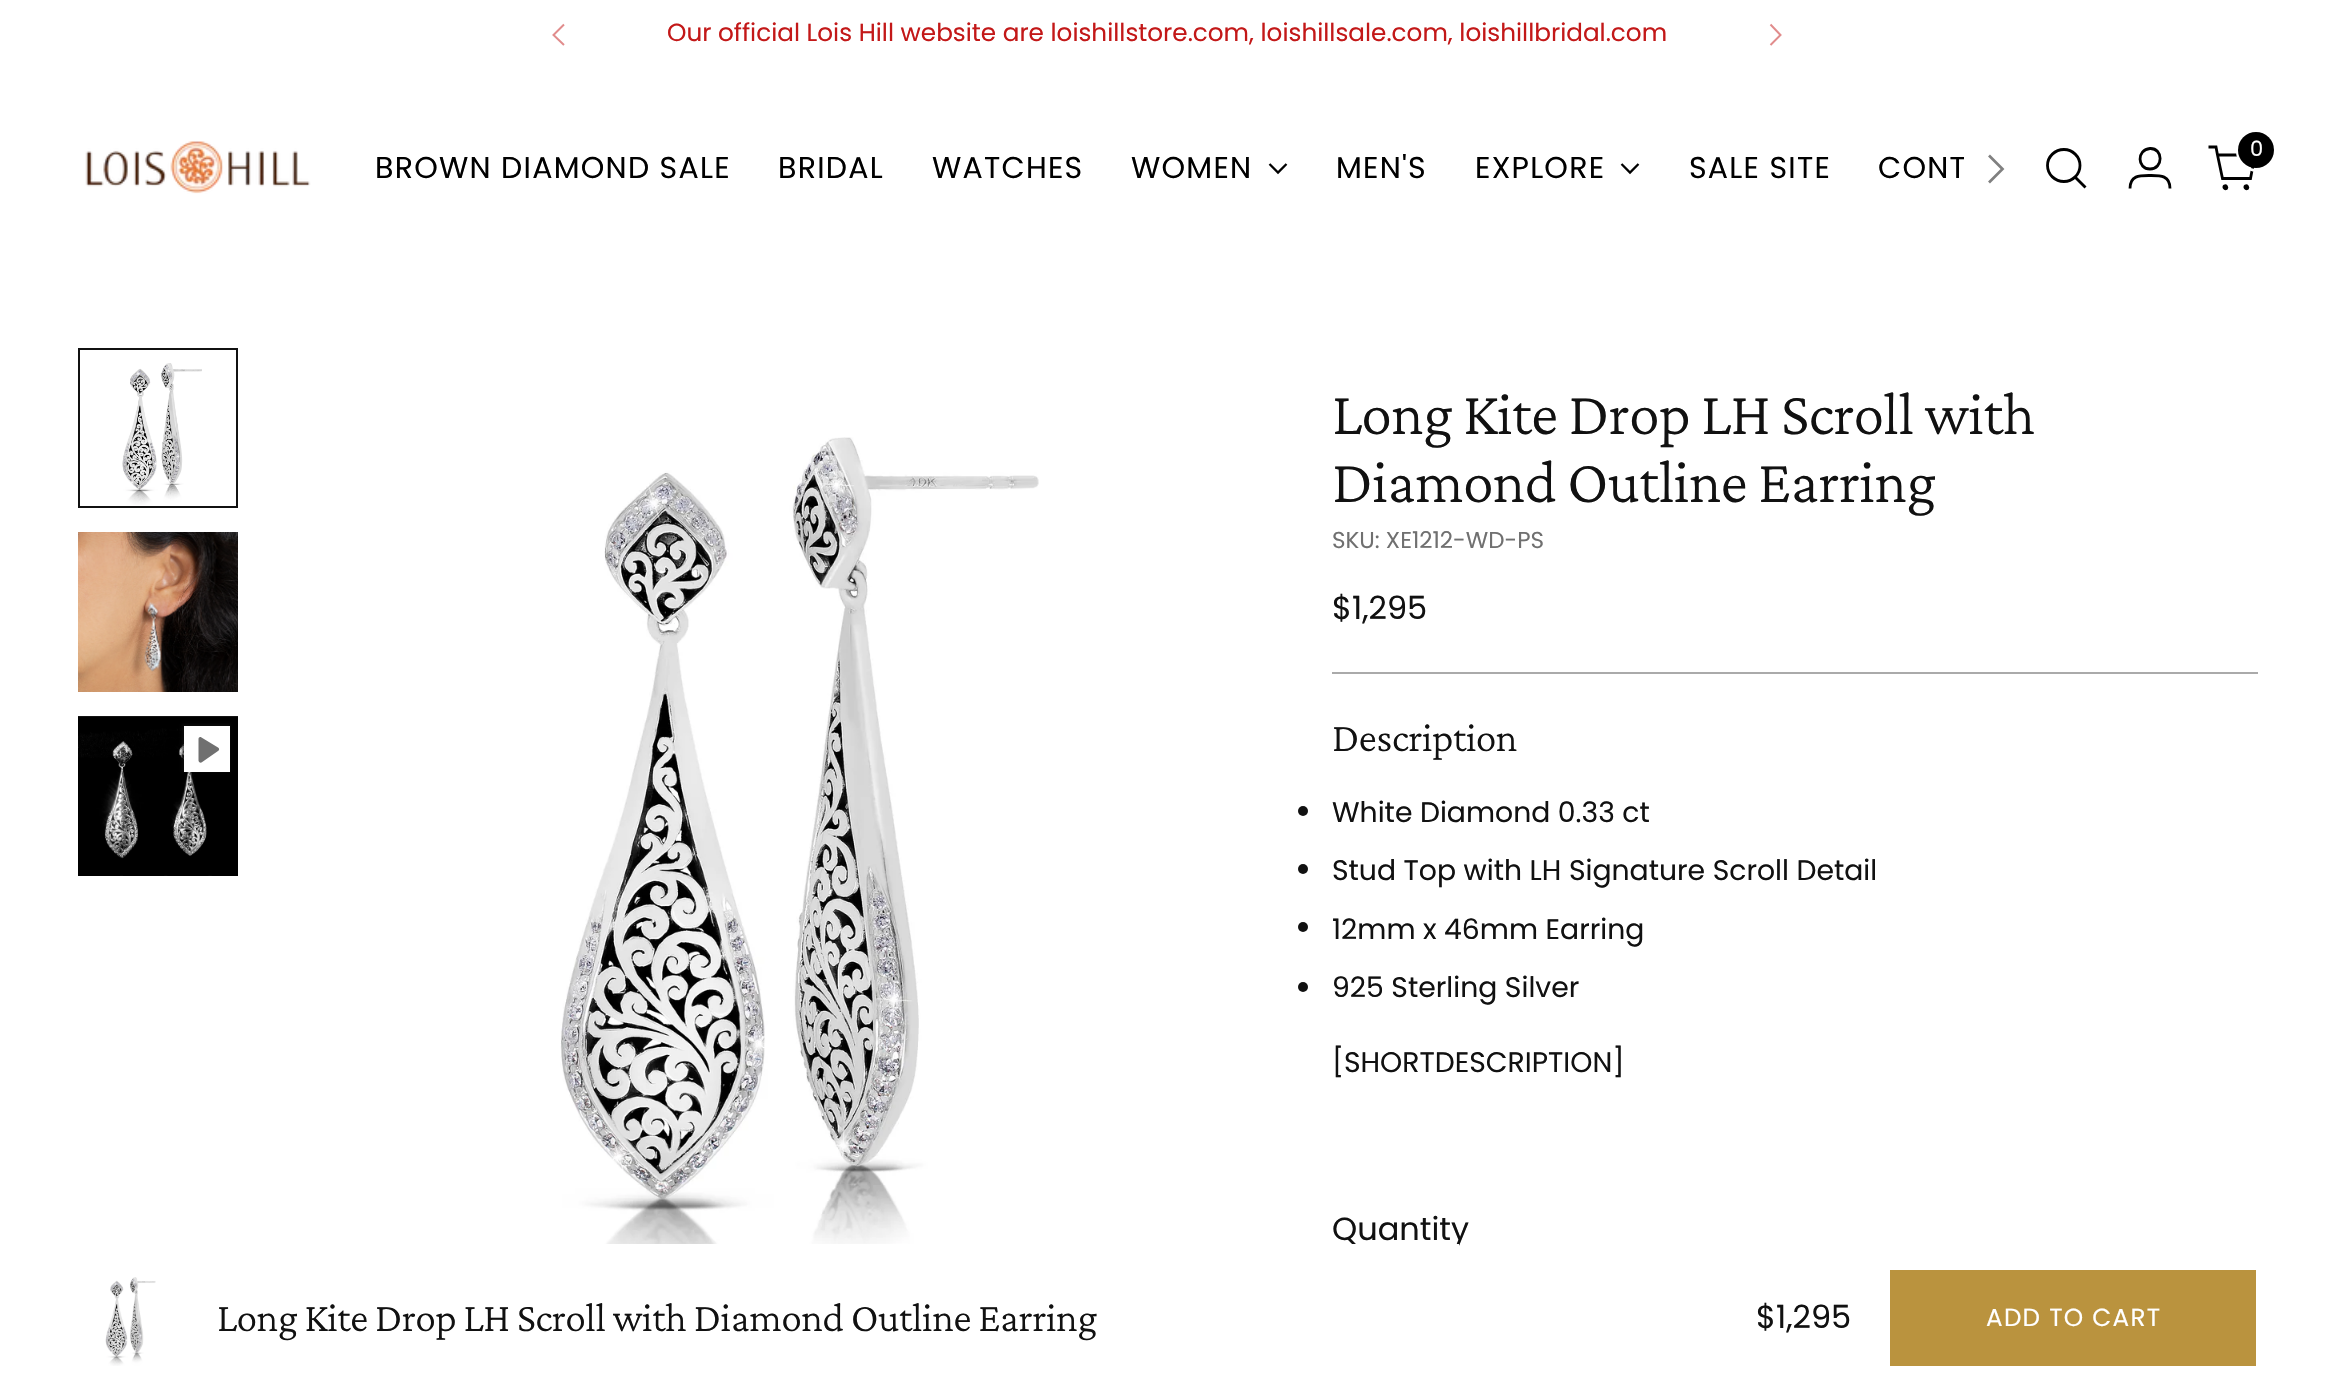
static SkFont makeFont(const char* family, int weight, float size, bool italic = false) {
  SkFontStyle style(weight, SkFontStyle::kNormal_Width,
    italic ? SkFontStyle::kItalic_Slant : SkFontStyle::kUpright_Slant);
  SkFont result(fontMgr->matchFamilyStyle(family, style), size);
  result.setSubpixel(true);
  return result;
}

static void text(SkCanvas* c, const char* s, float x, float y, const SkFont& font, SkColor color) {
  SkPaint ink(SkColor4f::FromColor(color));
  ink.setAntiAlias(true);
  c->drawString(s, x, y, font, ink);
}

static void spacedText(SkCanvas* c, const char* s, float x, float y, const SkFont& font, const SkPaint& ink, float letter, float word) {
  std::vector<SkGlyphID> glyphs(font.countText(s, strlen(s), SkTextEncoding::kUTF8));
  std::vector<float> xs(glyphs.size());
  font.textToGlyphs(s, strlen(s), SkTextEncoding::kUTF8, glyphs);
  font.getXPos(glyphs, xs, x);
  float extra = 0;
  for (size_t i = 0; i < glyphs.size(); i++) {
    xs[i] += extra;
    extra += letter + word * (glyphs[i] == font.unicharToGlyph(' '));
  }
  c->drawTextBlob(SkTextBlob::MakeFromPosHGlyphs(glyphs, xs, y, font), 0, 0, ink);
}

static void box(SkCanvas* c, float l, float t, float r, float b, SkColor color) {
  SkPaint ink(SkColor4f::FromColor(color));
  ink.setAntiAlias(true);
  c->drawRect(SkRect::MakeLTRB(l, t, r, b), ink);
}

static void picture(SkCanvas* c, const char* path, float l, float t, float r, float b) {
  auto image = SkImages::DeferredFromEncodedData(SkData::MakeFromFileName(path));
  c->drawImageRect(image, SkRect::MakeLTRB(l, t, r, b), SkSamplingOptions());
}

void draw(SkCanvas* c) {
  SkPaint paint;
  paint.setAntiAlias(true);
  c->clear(0xffffffff);
  SkFont face1 = makeFont("Poppins", 400, 24.7f);
  text(c, "Our official Lois Hill website are loishillstore.com, loishillsale.com, loishillbridal.com", 667, 41, face1, 0xffc31818);
  paint.setStyle(SkPaint::kStroke_Style);
  paint.setStrokeWidth(2);
  paint.setColor(0xffe18c8c);
  c->drawPath(SkPathBuilder().moveTo(564, 24.5f).lineTo(553.5f, 35).lineTo(564, 45).detach(), paint);
  c->drawPath(SkPathBuilder().moveTo(1770.5f, 45).lineTo(1780.5f, 35).lineTo(1770.5f, 24.5f).detach(), paint);
  picture(c, "img_01.png", 85, 141, 311, 194);
  SkFont face2 = makeFont("Poppins", 400, 30);
  paint.setStyle(SkPaint::kFill_Style);
  paint.setColor(0xff000000);
  spacedText(c, "BROWN DIAMOND SALE", 375, 178, face2, paint, 1.25f, 0);
  spacedText(c, "BRIDAL", 778, 178, face2, paint, 1.25f, 0);
  spacedText(c, "WATCHES", 932, 178, face2, paint, 1.25f, 0);
  spacedText(c, "WOMEN", 1131, 178, face2, paint, 1.25f, 0);
  paint.setStyle(SkPaint::kStroke_Style);
  paint.setStrokeWidth(2.3f);
  c->drawPath(SkPathBuilder().moveTo(1269.5f, 164).lineTo(1278, 172.5f).lineTo(1286.5f, 164).detach(), paint);
  paint.setStyle(SkPaint::kFill_Style);
  spacedText(c, "MEN'S", 1336, 178, face2, paint, 1.25f, 0);
  spacedText(c, "EXPLORE", 1475, 178, face2, paint, 1.25f, 0);
  paint.setStyle(SkPaint::kStroke_Style);
  c->drawPath(SkPathBuilder().moveTo(1621.5f, 164).lineTo(1630, 172.5f).lineTo(1638.5f, 164).detach(), paint);
  paint.setStyle(SkPaint::kFill_Style);
  spacedText(c, "SALE SITE", 1689, 178, face2, paint, 1.25f, 0);
  c->save();
  c->clipRect(SkRect::MakeLTRB(374, 68, 1964, 268));
  spacedText(c, "CONT", 1878, 178, face2, paint, 1.25f, 0);
  c->restore();
  paint.setStyle(SkPaint::kStroke_Style);
  paint.setStrokeWidth(2.7f);
  paint.setColor(0xff808080);
  c->drawPath(SkPathBuilder().moveTo(1989, 182.5f).lineTo(2002.5f, 169).lineTo(1989, 155.5f).detach(), paint);
  paint.setStrokeWidth(2.8f);
  paint.setStrokeCap(SkPaint::kRound_Cap);
  paint.setColor(0xff000000);
  c->drawPath(SkPathBuilder().moveTo(2064, 181.5f).cubicTo(2072.5f, 181.5f, 2080, 174.5f, 2080, 165.5f).cubicTo(2080, 156.5f, 2072.5f, 149.5f, 2064, 149.5f).cubicTo(2055, 149.5f, 2047.5f, 156.5f, 2047.5f, 165.5f).cubicTo(2047.5f, 174.5f, 2055, 181.5f, 2064, 181.5f).close().detach(), paint);
  paint.setStrokeCap(SkPaint::kButt_Cap);
  c->drawPath(SkPathBuilder().moveTo(2075.5f, 177.5f).lineTo(2085.5f, 187.5f).detach(), paint);
  c->drawPath(SkPathBuilder().moveTo(2150, 169).cubicTo(2163.5f, 169, 2163.5f, 148, 2150, 148.5f).cubicTo(2136.5f, 149.5f, 2137, 169, 2150, 169).close().moveTo(2130, 188.5f).cubicTo(2130, 175, 2140, 175.5f, 2150, 175.5f).cubicTo(2160, 175.5f, 2170, 175, 2170, 188.5f).detach(), paint);
  c->drawPath(SkPathBuilder().moveTo(2217.5f, 155).lineTo(2255, 155).lineTo(2250.5f, 178.5f).lineTo(2222.5f, 178.5f).close().moveTo(2217.5f, 155).lineTo(2216, 147).lineTo(2208.5f, 147).detach(), paint);
  paint.setStrokeWidth(3);
  paint.setColor(0xffffffff);
  c->drawCircle(2257, 151, 19.5f, paint);
  paint.setStyle(SkPaint::kFill_Style);
  paint.setColor(0xff000000);
  c->drawCircle(2256, 150, 18, paint);
  SkFont face3 = makeFont("Poppins", 400, 21);
  text(c, "0", 2250, 156, face3, 0xffffffff);
  paint.setStyle(SkPaint::kStroke_Style);
  paint.setStrokeWidth(2.8f);
  paint.setStrokeCap(SkPaint::kRound_Cap);
  paint.setStrokeJoin(SkPaint::kBevel_Join);
  c->drawPath(SkPathBuilder().moveTo(2224.5f, 186).cubicTo(2226, 185, 2227.5f, 187, 2226.5f, 188.5f).cubicTo(2224.5f, 189.5f, 2223, 187, 2224.5f, 186).close().moveTo(2245.5f, 186).cubicTo(2247, 185, 2248.5f, 187, 2247.5f, 188.5f).cubicTo(2245.5f, 189.5f, 2244, 187, 2245.5f, 186).close().detach(), paint);
  picture(c, "img_02.png", 122, 363, 202, 505);
  paint.setStrokeWidth(2);
  paint.setStrokeCap(SkPaint::kButt_Cap);
  paint.setStrokeJoin(SkPaint::kMiter_Join);
  paint.setColor(0xff111111);
  c->drawRect(SkRect::MakeLTRB(79, 349, 237, 507), paint);
  picture(c, "img_03.png", 78, 532, 238, 692);
  picture(c, "img_04.png", 78, 716, 238, 876);
  paint.setStyle(SkPaint::kFill_Style);
  paint.setColor(0x99111111);
  paint.setMaskFilter(SkMaskFilter::MakeBlur(kNormal_SkBlurStyle, 1));
  c->drawRect(SkRect::MakeLTRB(182, 724, 230, 772), paint);
  paint.setMaskFilter(nullptr);
  box(c, 184, 726, 230, 772, 0xffffffff);
  paint.setColor(0xff707070);
  c->drawPath(SkPathBuilder(SkPathFillType::kEvenOdd).moveTo(201.5f, 737.5f).cubicTo(200, 736.5f, 198.5f, 737.5f, 198.5f, 739).lineTo(198.5f, 760.5f).cubicTo(198.5f, 762, 200, 763, 201.5f, 762.5f).lineTo(218, 751).cubicTo(219.5f, 750, 219.5f, 748.5f, 218, 747.5f).close().detach(), paint);
  picture(c, "img_05.png", 560, 437, 1039, 1244);
  box(c, 1332, 672, 2258, 674, 0xffaaaaaa);
  SkFont face4 = makeFont("Crimson Pro", 300, 61.75f);
  paint.setColor(0xff111111);
  spacedText(c, "Long Kite Drop LH Scroll with", 1332, 434, face4, paint, -0.6f, 0);
  spacedText(c, "Diamond Outline Earring", 1332, 502, face4, paint, -0.6f, 0);
  SkFont face5 = makeFont("Poppins", 400, 23);
  text(c, "SKU: XE1212-WD-PS", 1332, 548, face5, 0xff707070);
  SkFont face6 = makeFont("Poppins", 400, 32);
  text(c, "$1,295", 1332, 619, face6, 0xff111111);
  SkFont face7 = makeFont("Crimson Pro", 300, 41.25f);
  spacedText(c, "Description", 1332, 751, face7, paint, -0.4f, 0);
  c->drawCircle(1303, 811, 5, paint);
  SkFont face8 = makeFont("Poppins", 400, 28.25f);
  text(c, "White Diamond 0.33 ct", 1332, 822, face8, 0xff111111);
  c->drawCircle(1303, 869, 5, paint);
  text(c, "Stud Top with LH Signature Scroll Detail", 1332, 880, face8, 0xff111111);
  c->drawCircle(1303, 927, 5, paint);
  text(c, "12mm x 46mm Earring", 1332, 939, face8, 0xff111111);
  c->drawCircle(1303, 987, 5, paint);
  text(c, "925 Sterling Silver", 1332, 997, face8, 0xff111111);
  text(c, "[SHORTDESCRIPTION]", 1332, 1072, face8, 0xff111111);
  text(c, "Quantity", 1332, 1240, face6, 0xff111111);
  box(c, 1351, 1244, 1459, 1249, 0xffffffff);
  picture(c, "img_06.png", 105, 1277, 156, 1366);
  spacedText(c, "Long Kite Drop LH Scroll with Diamond Outline Earring", 217, 1331, face7, paint, -0.4f, 0);
  text(c, "$1,295", 1756, 1328, face6, 0xff111111);
  c->save();
  c->clipRect(SkRect::MakeLTRB(1890, 1270, 2256, 1366));
  paint.setColor(0xffba933e);
  c->drawPath(SkPathBuilder().moveTo(1790, 1270).lineTo(2302, 1270).lineTo(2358, 1366).lineTo(1845, 1366).close().detach(), paint);
  c->restore();
  paint.setColor(0xffffffff);
  spacedText(c, "ADD TO CART", 1986, 1326, face1, paint, 1.25f, 0);
}
